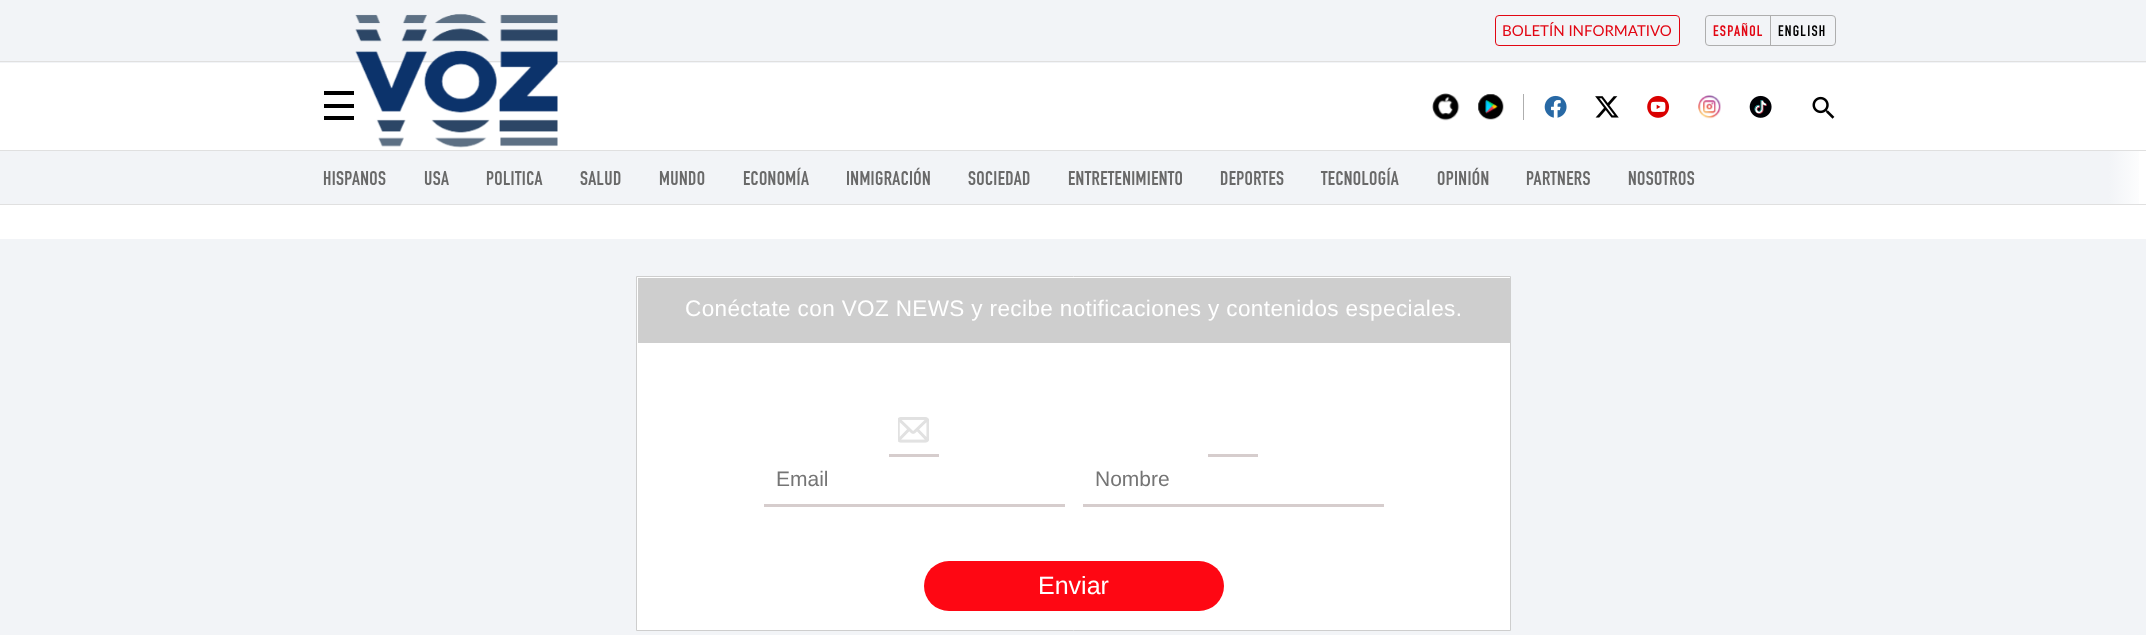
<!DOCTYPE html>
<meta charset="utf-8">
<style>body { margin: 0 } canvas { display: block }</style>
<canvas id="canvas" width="2146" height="635"></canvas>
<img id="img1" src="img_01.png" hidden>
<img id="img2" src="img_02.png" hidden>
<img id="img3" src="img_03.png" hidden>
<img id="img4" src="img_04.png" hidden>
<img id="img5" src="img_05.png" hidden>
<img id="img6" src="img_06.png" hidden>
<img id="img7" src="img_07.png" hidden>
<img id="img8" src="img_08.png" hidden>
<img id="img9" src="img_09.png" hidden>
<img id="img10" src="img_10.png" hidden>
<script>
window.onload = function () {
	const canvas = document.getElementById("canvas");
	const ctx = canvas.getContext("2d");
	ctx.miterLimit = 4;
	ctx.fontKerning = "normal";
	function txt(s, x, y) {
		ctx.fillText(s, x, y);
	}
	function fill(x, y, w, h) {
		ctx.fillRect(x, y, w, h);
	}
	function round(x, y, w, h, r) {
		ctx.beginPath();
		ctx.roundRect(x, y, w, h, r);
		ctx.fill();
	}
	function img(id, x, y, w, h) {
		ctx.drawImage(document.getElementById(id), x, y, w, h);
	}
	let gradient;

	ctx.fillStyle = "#FFFFFF";
	fill(0, 0, 2146, 635);
	ctx.fillStyle = "#000000";
	fill(324, 104, 30, 4);
	fill(324, 91, 30, 4);
	fill(324, 116, 30, 4);
	ctx.fillStyle = "#F2F4F7";
	fill(0, 0, 2146, 63);
	ctx.fillStyle = "#E0E0E0";
	fill(0, 61, 2146, 1);
	img("img1", 355, 13, 203, 135);
	img("img2", 1432, 93, 28, 28);
	img("img3", 1478, 94, 26, 26);
	ctx.fillStyle = "#AEAEAE";
	fill(1523, 94, 1, 26);
	img("img4", 1544, 95, 23, 23);
	img("img5", 1595, 96, 24, 22);
	img("img6", 1647, 95, 23, 23);
	img("img7", 1698, 95, 23, 24);
	img("img8", 1749, 95, 23, 23);
	ctx.beginPath();
	ctx.roundRect(1495.5, 15.5, 184, 30, 3.5);
	ctx.strokeStyle = "#E20613";
	ctx.stroke();
	ctx.beginPath();
	ctx.roundRect(1705.5, 15.5, 130, 30, 3.5);
	ctx.strokeStyle = "#AEAEAE";
	ctx.stroke();
	fill(1770, 16, 1, 29);
	img("img9", 1812, 96, 23, 23);
	ctx.fillStyle = "#F2F4F7";
	fill(0, 151, 2109, 53);
	ctx.fillStyle = "#E0E0E0";
	fill(0, 150, 2146, 1);
	fill(0, 204, 2146, 1);
	gradient = ctx.createLinearGradient(2109, 178, 2146, 178);
	gradient.addColorStop(0, "#F2F4F7");
	gradient.addColorStop(1, "#FFFFFF");
	ctx.fillStyle = gradient;
	fill(2109, 151, 30, 53);
	ctx.fillStyle = "#F2F4F7";
	fill(0, 239, 2146, 396);
	ctx.fillStyle = "#FFFFFF";
	ctx.beginPath();
	ctx.rect(636.5, 276.5, 874, 354);
	ctx.fill();
	ctx.strokeStyle = "#CECECE";
	ctx.stroke();
	ctx.fillStyle = "#CECECE";
	fill(638, 278, 872, 65);
	img("img10", 898, 417, 31, 26);
	ctx.fillStyle = "#D6CDCD";
	fill(889, 454, 50, 3);
	fill(764, 504, 301, 3);
	fill(1208, 454, 50, 3);
	fill(1083, 504, 301, 3);
	ctx.fillStyle = "#FE0713";
	round(924, 561, 300, 50, 25);
	ctx.font = "15px Lato";
	ctx.fillStyle = "#E20613";
	txt("BOLETÍN INFORMATIVO", 1502, 36);
	ctx.letterSpacing = "1.25px";
	ctx.font = "bold 15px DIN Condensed";
	txt("ESPAÑOL", 1713, 36);
	ctx.fillStyle = "#000000";
	txt("ENGLISH", 1778, 36);
	ctx.letterSpacing = "0.38px";
	ctx.font = "bold 19.5px DIN Condensed";
	ctx.fillStyle = "#696969";
	txt("HISPANOS", 323, 185);
	txt("USA", 424, 185);
	txt("POLITICA", 486, 185);
	txt("SALUD", 580, 185);
	txt("MUNDO", 659, 185);
	txt("ECONOMÍA", 743, 185);
	txt("INMIGRACIÓN", 846, 185);
	txt("SOCIEDAD", 968, 185);
	txt("ENTRETENIMIENTO", 1068, 185);
	txt("DEPORTES", 1220, 185);
	txt("TECNOLOGÍA", 1321, 185);
	txt("OPINIÓN", 1437, 185);
	txt("PARTNERS", 1526, 185);
	txt("NOSOTROS", 1628, 185);
	ctx.font = "22.5px Liberation Sans";
	ctx.fillStyle = "#FFFFFF";
	txt("Conéctate con VOZ NEWS y recibe notificaciones y contenidos especiales.", 685, 316);
	ctx.letterSpacing = "0px";
	ctx.font = "21px Liberation Sans";
	ctx.fillStyle = "#757575";
	txt("Email", 776, 486);
	txt("Nombre", 1095, 486);
	ctx.font = "25px Liberation Sans";
	ctx.fillStyle = "#FFFFFF";
	txt("Enviar", 1038, 594);
};
</script>
